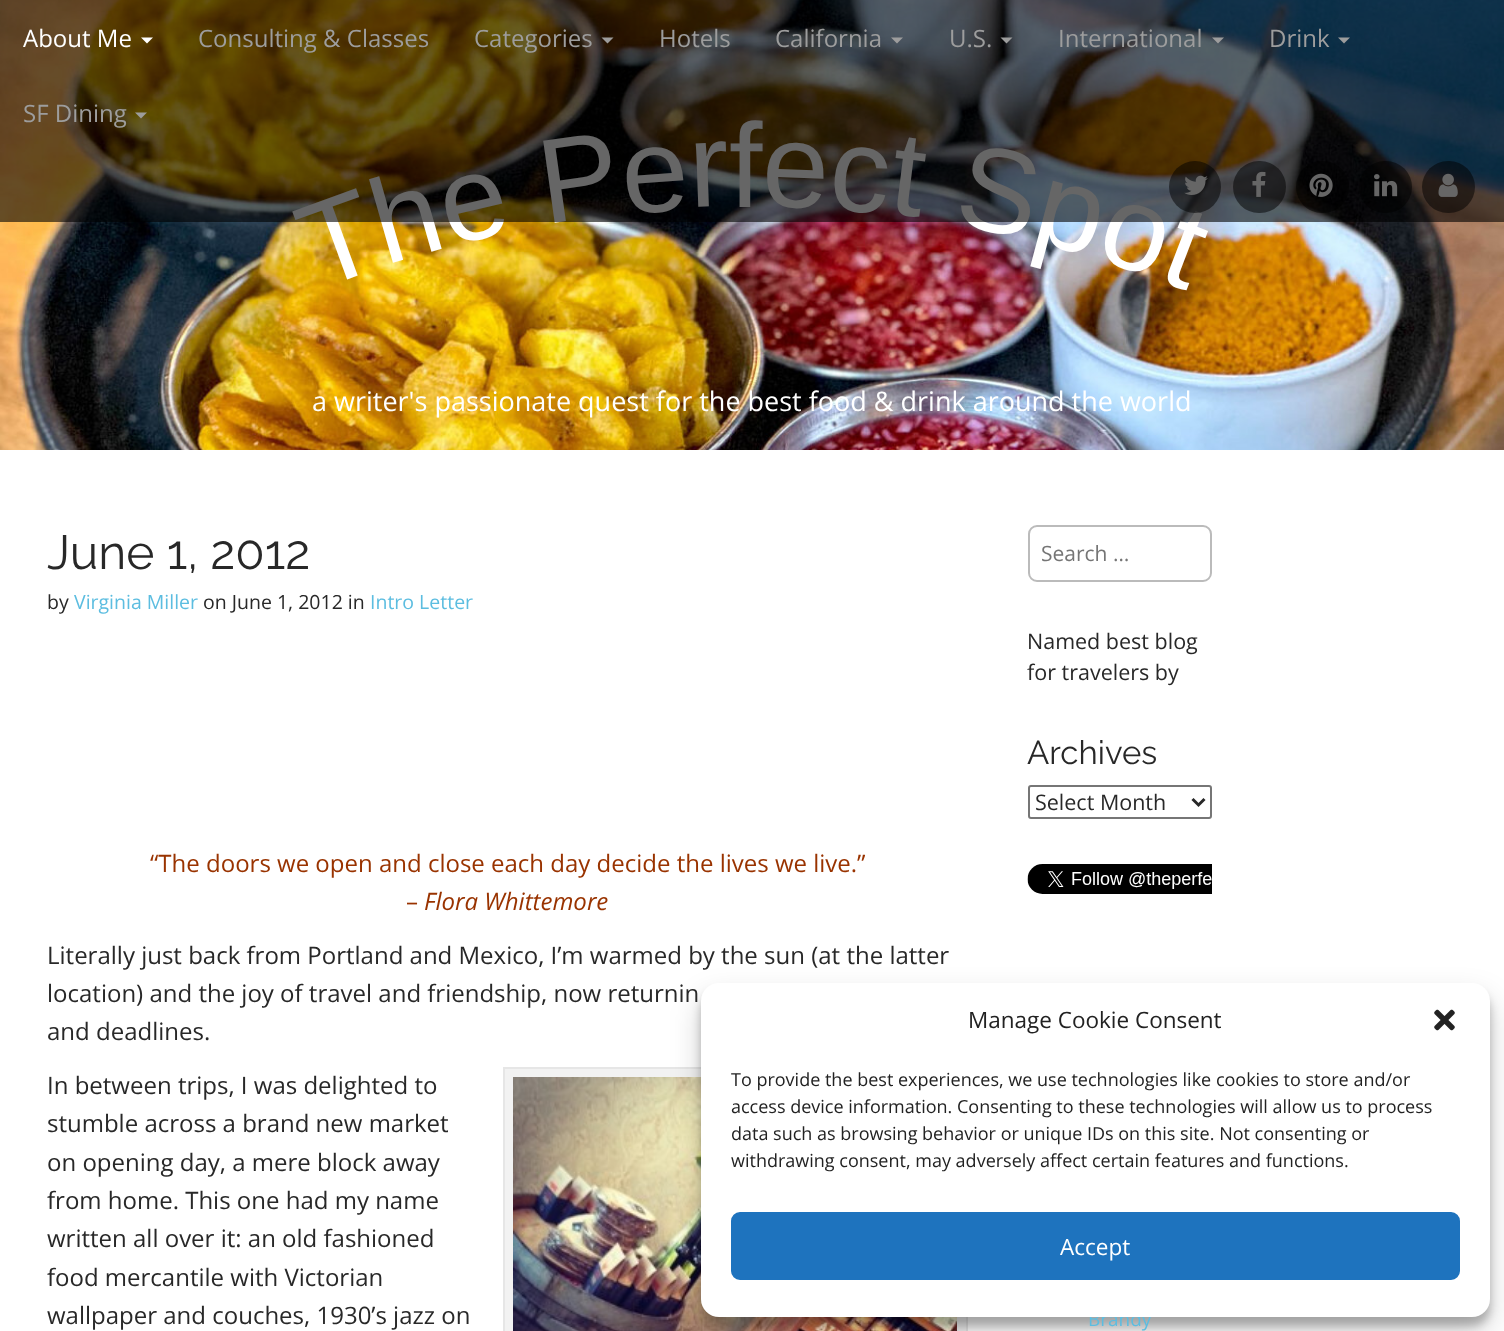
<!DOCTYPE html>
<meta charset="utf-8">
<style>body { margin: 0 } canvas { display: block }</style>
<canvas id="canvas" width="1504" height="1331"></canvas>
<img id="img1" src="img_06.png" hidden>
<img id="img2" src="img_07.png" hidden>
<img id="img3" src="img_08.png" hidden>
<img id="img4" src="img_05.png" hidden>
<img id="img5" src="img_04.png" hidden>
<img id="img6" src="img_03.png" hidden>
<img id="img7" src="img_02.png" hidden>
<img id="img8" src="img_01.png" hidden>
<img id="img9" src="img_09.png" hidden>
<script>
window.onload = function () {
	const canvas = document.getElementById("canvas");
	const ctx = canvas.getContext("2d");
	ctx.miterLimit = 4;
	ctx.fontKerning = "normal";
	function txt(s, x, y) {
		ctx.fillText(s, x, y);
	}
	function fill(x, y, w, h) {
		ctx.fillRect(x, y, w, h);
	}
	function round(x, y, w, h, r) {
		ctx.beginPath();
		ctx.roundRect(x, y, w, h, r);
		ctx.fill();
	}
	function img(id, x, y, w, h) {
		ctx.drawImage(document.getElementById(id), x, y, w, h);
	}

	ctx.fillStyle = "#FFFFFF";
	fill(0, 0, 1504, 1331);
	img("img1", 0, 0, 1504, 450);
	ctx.fillStyle = "#F2F2F2";
	ctx.beginPath();
	ctx.rect(504, 1068, 463, 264);
	ctx.fill();
	ctx.strokeStyle = "#E6E6E6";
	ctx.lineWidth = 2;
	ctx.stroke();
	img("img2", 513, 1077, 444, 254);
	ctx.beginPath();
	ctx.roundRect(1029, 526, 182, 55, 8);
	ctx.strokeStyle = "#BBBBBB";
	ctx.stroke();
	ctx.beginPath();
	ctx.roundRect(1029, 786, 182, 32, 2);
	ctx.strokeStyle = "#767676";
	ctx.stroke();
	ctx.beginPath();
	ctx.moveTo(1192.5, 799);
	ctx.lineTo(1198.5, 805);
	ctx.lineTo(1204.5, 799);
	ctx.strokeStyle = "#282828";
	ctx.lineWidth = 3;
	ctx.stroke();
	img("img3", 1027, 864, 185, 30);
	ctx.fillStyle = "rgba(0, 0, 0, 0.23)";
	ctx.filter = "blur(4.5px)";
	ctx.beginPath();
	ctx.roundRect(701, 992, 789, 334, 18);
	ctx.fill();
	ctx.filter = "none";
	ctx.fillStyle = "rgba(0, 0, 0, 0.19)";
	ctx.filter = "blur(15px)";
	ctx.beginPath();
	ctx.roundRect(701, 998, 789, 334, 18);
	ctx.fill();
	ctx.filter = "none";
	ctx.font = "120px Liberation Sans";
	ctx.fillStyle = "#FFFFFF";
	ctx.save();
	ctx.translate(318, 290);
	ctx.rotate(-20 * Math.PI / 180);
	ctx.fillText("T", 0, 0);
	ctx.restore();
	ctx.save();
	ctx.translate(385, 265);
	ctx.rotate(-16 * Math.PI / 180);
	ctx.fillText("h", 0, 0);
	ctx.restore();
	ctx.save();
	ctx.translate(449, 246);
	ctx.rotate(-13 * Math.PI / 180);
	ctx.fillText("e", 0, 0);
	ctx.restore();
	ctx.save();
	ctx.translate(545, 224);
	ctx.rotate(-8 * Math.PI / 180);
	ctx.fillText("P", 0, 0);
	ctx.restore();
	ctx.save();
	ctx.translate(624, 214);
	ctx.rotate(-4 * Math.PI / 180);
	ctx.fillText("e", 0, 0);
	ctx.restore();
	ctx.save();
	ctx.translate(690, 207);
	ctx.rotate(-2 * Math.PI / 180);
	ctx.fillText("r", 0, 0);
	ctx.restore();
	txt("f", 729, 207);
	ctx.save();
	ctx.translate(761, 206);
	ctx.rotate(2 * Math.PI / 180);
	ctx.fillText("e", 0, 0);
	ctx.restore();
	ctx.save();
	ctx.translate(827, 209);
	ctx.rotate(5 * Math.PI / 180);
	ctx.fillText("c", 0, 0);
	ctx.restore();
	ctx.save();
	ctx.translate(887, 213);
	ctx.rotate(7 * Math.PI / 180);
	ctx.fillText("t", 0, 0);
	ctx.restore();
	ctx.save();
	ctx.translate(952, 224);
	ctx.rotate(11 * Math.PI / 180);
	ctx.fillText("S", 0, 0);
	ctx.restore();
	ctx.save();
	ctx.translate(1029, 240);
	ctx.rotate(15 * Math.PI / 180);
	ctx.fillText("p", 0, 0);
	ctx.restore();
	ctx.save();
	ctx.translate(1093, 258);
	ctx.rotate(18 * Math.PI / 180);
	ctx.fillText("o", 0, 0);
	ctx.restore();
	ctx.save();
	ctx.translate(1156, 279);
	ctx.rotate(21 * Math.PI / 180);
	ctx.fillText("t", 0, 0);
	ctx.restore();
	ctx.fillStyle = "rgba(0, 0, 0, 0.6)";
	fill(0, 0, 1504, 222);
	ctx.fillStyle = "rgba(0, 0, 0, 0.5)";
	round(1422, 161, 53, 52, 26);
	img("img4", 1438, 173, 20, 24);
	round(1359, 161, 53, 52, 26);
	img("img5", 1374, 174, 24, 23);
	round(1296, 161, 53, 52, 26);
	img("img6", 1309, 173, 24, 24);
	round(1233, 161, 53, 52, 26);
	img("img7", 1252, 171, 14, 26);
	ctx.beginPath();
	ctx.arc(1195, 187, 26, 0, Math.PI * 2);
	ctx.fill();
	img("img8", 1184, 175, 24, 20);
	ctx.fillStyle = "#9D9D9D";
	ctx.beginPath();
	ctx.moveTo(135, 112.5);
	ctx.lineTo(147, 112.5);
	ctx.lineTo(141, 118.5);
	ctx.closePath();
	ctx.fill();
	ctx.font = "24px Open Sans";
	txt("SF Dining", 23, 122);
	ctx.beginPath();
	ctx.moveTo(1338, 37.5);
	ctx.lineTo(1350, 37.5);
	ctx.lineTo(1344, 43.5);
	ctx.closePath();
	ctx.fill();
	txt("Drink", 1269, 47);
	ctx.beginPath();
	ctx.moveTo(1212, 37.5);
	ctx.lineTo(1224, 37.5);
	ctx.lineTo(1218, 43.5);
	ctx.closePath();
	ctx.fill();
	txt("International", 1058, 47);
	ctx.beginPath();
	ctx.moveTo(1000.5, 37.5);
	ctx.lineTo(1012.5, 37.5);
	ctx.lineTo(1006.5, 43.5);
	ctx.closePath();
	ctx.fill();
	txt("U.S.", 949, 47);
	ctx.beginPath();
	ctx.moveTo(891, 37.5);
	ctx.lineTo(903, 37.5);
	ctx.lineTo(897, 43.5);
	ctx.closePath();
	ctx.fill();
	txt("California", 775, 47);
	txt("Hotels", 659, 47);
	ctx.beginPath();
	ctx.moveTo(601.5, 37.5);
	ctx.lineTo(613.5, 37.5);
	ctx.lineTo(607.5, 43.5);
	ctx.closePath();
	ctx.fill();
	txt("Categories", 474, 47);
	txt("Consulting & Classes", 198, 47);
	ctx.fillStyle = "#FFFFFF";
	ctx.beginPath();
	ctx.moveTo(141, 37.5);
	ctx.lineTo(153, 37.5);
	ctx.lineTo(147, 43.5);
	ctx.closePath();
	ctx.fill();
	txt("About Me", 23, 47);
	ctx.font = "27px Open Sans";
	txt("a writer's passionate quest for the best food & drink around the world", 312, 411);
	ctx.font = "100 48px Raleway";
	ctx.fillStyle = "#282828";
	txt("June 1, 2012", 47, 569);
	ctx.font = "19.5px Open Sans";
	txt("by", 47, 609);
	ctx.fillStyle = "#5CBDE0";
	txt("Virginia Miller", 74, 609);
	ctx.fillStyle = "#282828";
	txt("on June 1, 2012 in", 203, 609);
	ctx.fillStyle = "#5CBDE0";
	txt("Intro Letter", 370, 609);
	ctx.font = "24px Open Sans";
	ctx.fillStyle = "#993300";
	txt("“The doors we open and close each day decide the lives we live.”", 150, 872);
	txt("–", 406, 910);
	ctx.font = "italic 24px Open Sans";
	txt("Flora Whittemore", 424, 910);
	ctx.font = "24px Open Sans";
	ctx.fillStyle = "#282828";
	txt("Literally just back from Portland and Mexico, I’m warmed by the sun (at the latter", 47, 964);
	txt("location) and the joy of travel and friendship, now returnin", 47, 1002);
	txt("and deadlines.", 47, 1040);
	txt("In between trips, I was delighted to", 47, 1094);
	txt("stumble across a brand new market", 47, 1132);
	txt("on opening day, a mere block away", 47, 1171);
	txt("from home. This one had my name", 47, 1209);
	txt("written all over it: an old fashioned", 47, 1247);
	txt("food mercantile with Victorian", 47, 1286);
	txt("wallpaper and couches, 1930’s jazz on", 47, 1324);
	ctx.font = "21px Open Sans";
	ctx.fillStyle = "#757575";
	txt("Search …", 1041, 561);
	ctx.font = "21.5px Open Sans";
	ctx.fillStyle = "#282828";
	txt("Named best blog", 1027, 649);
	txt("for travelers by", 1027, 680);
	ctx.font = "100 33px Raleway";
	txt("Archives", 1027, 764);
	ctx.font = "21.5px Open Sans";
	txt("Select Month", 1035, 810);
	ctx.font = "19px Open Sans";
	ctx.fillStyle = "#5CBDE0";
	txt("Brandy", 1088, 1326);
	ctx.fillStyle = "#FFFFFF";
	round(701, 983, 789, 334, 18);
	ctx.font = "22.5px Open Sans";
	ctx.fillStyle = "#222222";
	txt("Manage Cookie Consent", 968, 1028);
	img("img9", 1434, 1009, 21, 22);
	ctx.font = "18px Open Sans";
	txt("To provide the best experiences, we use technologies like cookies to store and/or", 731, 1086);
	txt("access device information. Consenting to these technologies will allow us to process", 731, 1113);
	txt("data such as browsing behavior or unique IDs on this site. Not consenting or", 731, 1140);
	txt("withdrawing consent, may adversely affect certain features and functions.", 731, 1167);
	ctx.fillStyle = "#1E73BE";
	ctx.beginPath();
	ctx.roundRect(732, 1213, 727, 66, 8);
	ctx.fill();
	ctx.strokeStyle = "#1E73BE";
	ctx.lineWidth = 2;
	ctx.stroke();
	ctx.font = "22.5px Open Sans";
	ctx.fillStyle = "#FFFFFF";
	txt("Accept", 1060, 1255);
};
</script>
